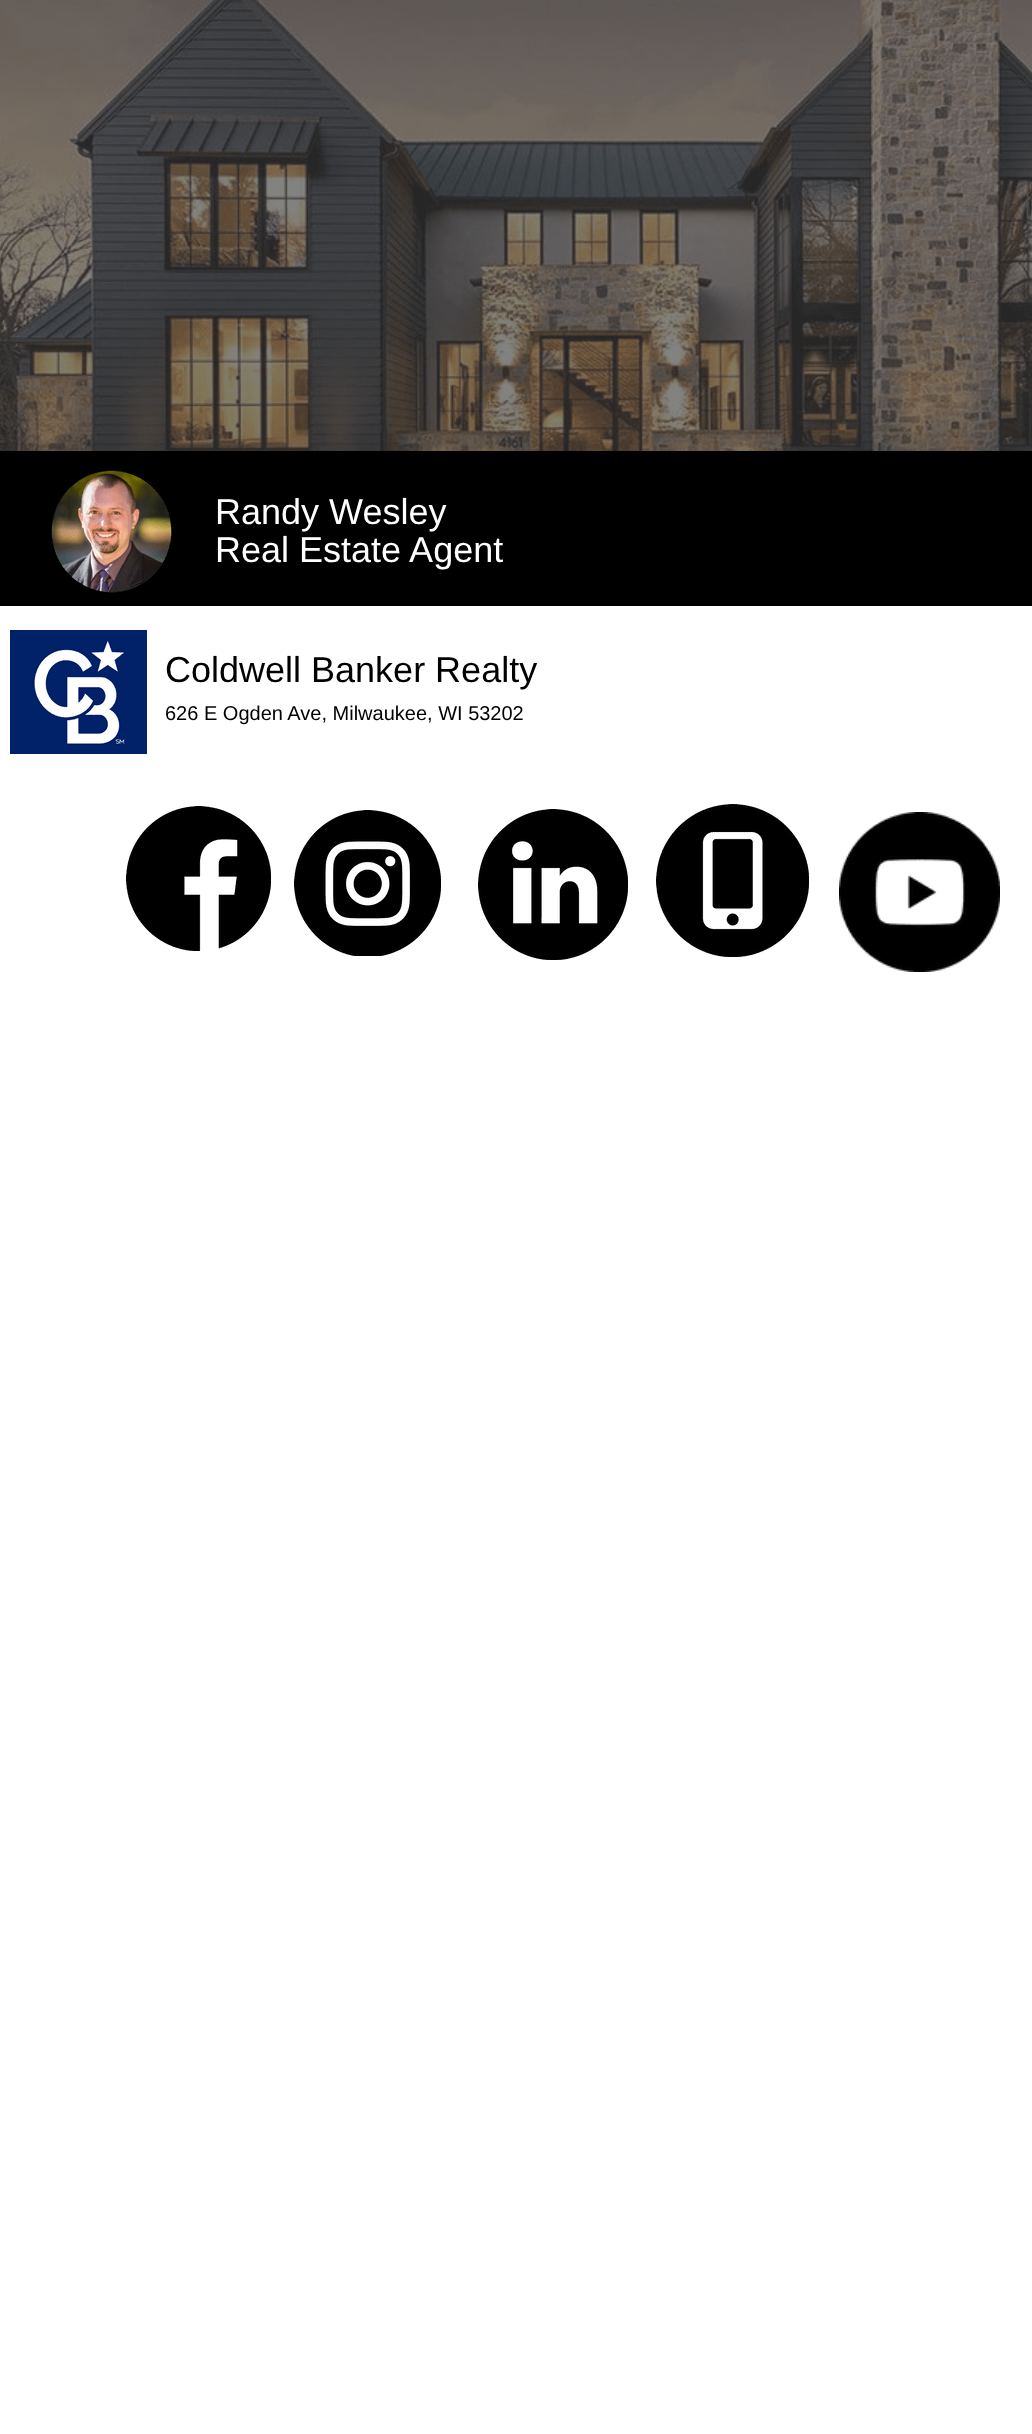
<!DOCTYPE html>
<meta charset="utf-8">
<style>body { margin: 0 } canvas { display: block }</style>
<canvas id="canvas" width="1032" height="2434"></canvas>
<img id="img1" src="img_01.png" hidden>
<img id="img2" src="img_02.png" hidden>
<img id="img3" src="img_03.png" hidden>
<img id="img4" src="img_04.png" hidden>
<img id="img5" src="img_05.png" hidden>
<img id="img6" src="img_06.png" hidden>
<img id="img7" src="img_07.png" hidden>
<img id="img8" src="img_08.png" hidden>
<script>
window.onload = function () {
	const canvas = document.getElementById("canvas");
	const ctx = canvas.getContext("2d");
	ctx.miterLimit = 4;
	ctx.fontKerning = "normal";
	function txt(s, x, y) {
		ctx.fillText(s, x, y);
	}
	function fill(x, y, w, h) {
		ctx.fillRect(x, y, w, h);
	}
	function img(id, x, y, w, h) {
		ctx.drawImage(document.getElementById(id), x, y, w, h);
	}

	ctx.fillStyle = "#FFFFFF";
	fill(0, 0, 1032, 2434);
	img("img1", 0, 0, 1032, 451);
	ctx.fillStyle = "#000000";
	fill(0, 451, 1032, 155);
	img("img2", 51, 470, 121, 123);
	img("img3", 10, 630, 137, 124);
	img("img4", 126, 806, 145, 145);
	img("img5", 294, 810, 147, 146);
	img("img6", 478, 809, 150, 151);
	img("img7", 656, 804, 153, 153);
	img("img8", 839, 812, 161, 160);
	ctx.font = "36px Liberation Sans";
	ctx.fillStyle = "#FFFFFF";
	txt("Randy Wesley", 215, 524);
	txt("Real Estate Agent", 215, 562);
	ctx.fillStyle = "#000000";
	txt("Coldwell Banker Realty", 165, 682);
	ctx.font = "20px Liberation Sans";
	txt("626 E Ogden Ave, Milwaukee, WI 53202", 165, 720);
};
</script>
